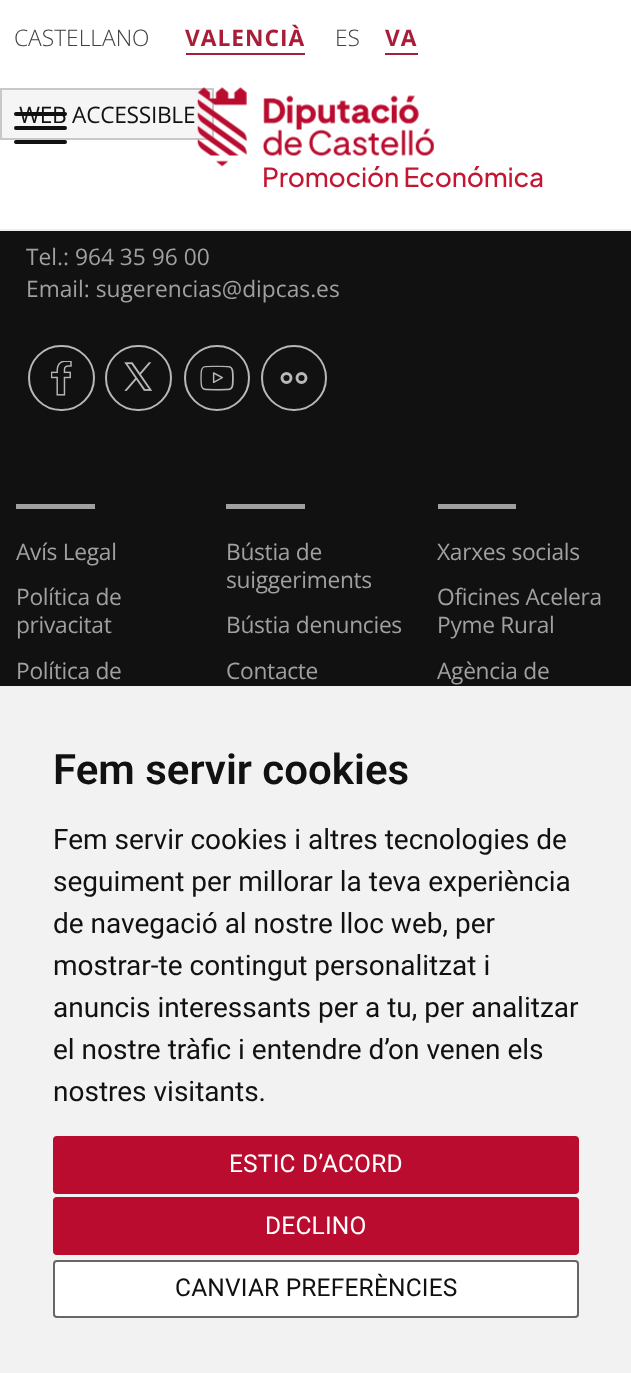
<!DOCTYPE html>
<meta charset="utf-8">
<style>body { margin: 0 } canvas { display: block }</style>
<canvas id="canvas" width="631" height="1373"></canvas>
<img id="img1" src="img_01.png" hidden>
<img id="img2" src="img_02.png" hidden>
<img id="img3" src="img_03.png" hidden>
<img id="img4" src="img_04.png" hidden>
<script>
window.onload = function () {
	const canvas = document.getElementById("canvas");
	const ctx = canvas.getContext("2d");
	ctx.miterLimit = 4;
	ctx.fontKerning = "normal";
	function txt(s, x, y) {
		ctx.fillText(s, x, y);
	}
	function fill(x, y, w, h) {
		ctx.fillRect(x, y, w, h);
	}
	function round(x, y, w, h, r) {
		ctx.beginPath();
		ctx.roundRect(x, y, w, h, r);
		ctx.fill();
	}
	function img(id, x, y, w, h) {
		ctx.drawImage(document.getElementById(id), x, y, w, h);
	}

	ctx.fillStyle = "#111111";
	fill(0, 0, 631, 1373);
	ctx.fillStyle = "#FFFFFF";
	fill(0, 0, 631, 229);
	ctx.fillStyle = "#EEEEEE";
	fill(0, 229, 631, 2);
	ctx.fillStyle = "#A81D37";
	fill(186, 53, 119, 2);
	fill(385, 53, 33, 2);
	ctx.fillStyle = "#F5F5F5";
	ctx.beginPath();
	ctx.rect(1, 89, 212, 50);
	ctx.fill();
	ctx.strokeStyle = "#C8C8C8";
	ctx.lineWidth = 2;
	ctx.stroke();
	img("img1", 197, 87, 237, 80);
	ctx.fillStyle = "#111111";
	round(14, 126, 53, 4, 2);
	round(14, 112, 53, 4, 2);
	round(14, 140, 53, 4, 2);
	img("img2", 51, 361, 21, 35);
	ctx.beginPath();
	ctx.roundRect(29, 346, 65, 64, 32);
	ctx.strokeStyle = "#B8B8B8";
	ctx.stroke();
	img("img3", 124, 362, 28, 29);
	ctx.beginPath();
	ctx.roundRect(106, 346, 65, 64, 32);
	ctx.stroke();
	img("img4", 200, 365, 34, 26);
	ctx.beginPath();
	ctx.arc(217, 378, 32, 0, Math.PI * 2);
	ctx.stroke();
	ctx.beginPath();
	ctx.arc(286.5, 378, 4.5, 0, Math.PI * 2);
	ctx.lineWidth = 2.9;
	ctx.stroke();
	ctx.beginPath();
	ctx.arc(301.5, 378, 4.5, 0, Math.PI * 2);
	ctx.stroke();
	ctx.beginPath();
	ctx.arc(294, 378, 32, 0, Math.PI * 2);
	ctx.lineWidth = 2;
	ctx.stroke();
	ctx.fillStyle = "#A0A0A0";
	fill(16, 504, 79, 5);
	fill(226, 504, 79, 5);
	fill(438, 504, 78, 5);
	ctx.fillStyle = "#F2F2F2";
	fill(0, 686, 631, 687);
	ctx.fillStyle = "#BA0C2F";
	ctx.beginPath();
	ctx.roundRect(54, 1137, 524, 56, 3);
	ctx.fill();
	ctx.strokeStyle = "#BA0C2F";
	ctx.stroke();
	ctx.beginPath();
	ctx.roundRect(54, 1198, 524, 56, 3);
	ctx.fill();
	ctx.stroke();
	ctx.fillStyle = "#FFFFFF";
	ctx.beginPath();
	ctx.roundRect(54, 1261, 524, 56, 3);
	ctx.fill();
	ctx.strokeStyle = "#666666";
	ctx.stroke();
	ctx.font = "300 22.75px Open Sans";
	ctx.fillStyle = "#404040";
	txt("CASTELLANO", 14, 46);
	ctx.letterSpacing = "1px";
	ctx.font = "bold 22.75px Open Sans";
	ctx.fillStyle = "#A81D37";
	txt("VALENCIÀ", 185, 46);
	ctx.letterSpacing = "0px";
	ctx.font = "300 22.75px Open Sans";
	ctx.fillStyle = "#404040";
	txt("ES", 335, 46);
	ctx.letterSpacing = "1px";
	ctx.font = "bold 22.75px Open Sans";
	ctx.fillStyle = "#A81D37";
	txt("VA", 385, 46);
	ctx.letterSpacing = "-0.3px";
	ctx.font = "22.75px Open Sans";
	ctx.fillStyle = "#111111";
	txt("WEB ACCESSIBLE", 19, 123);
	ctx.letterSpacing = "-0.2px";
	ctx.font = "500 26.25px Plus Jakarta Sans";
	ctx.fillStyle = "#C21632";
	txt("Promoción Económica", 262, 187);
	ctx.letterSpacing = "0px";
	ctx.font = "22.75px Open Sans";
	ctx.fillStyle = "#A0A0A0";
	txt("Tel.: 964 35 96 00", 26, 265);
	txt("Email: sugerencias@dipcas.es", 26, 297);
	ctx.letterSpacing = "-0.3px";
	txt("Avís Legal", 16, 560);
	txt("Política de", 16, 605);
	txt("privacitat", 16, 633);
	txt("Política de", 16, 679);
	txt("Bústia de", 226, 560);
	txt("suiggeriments", 226, 588);
	txt("Bústia denuncies", 226, 633);
	txt("Contacte", 226, 679);
	txt("Xarxes socials", 437, 560);
	txt("Oficines Acelera", 437, 605);
	txt("Pyme Rural", 437, 633);
	txt("Agència de", 437, 679);
	ctx.letterSpacing = "0px";
	ctx.font = "600 42px Roboto";
	ctx.fillStyle = "#111111";
	txt("Fem servir cookies", 53, 784);
	ctx.font = "28px Roboto";
	txt("Fem servir cookies i altres tecnologies de", 53, 849);
	txt("seguiment per millorar la teva experiència", 53, 891);
	txt("de navegació al nostre lloc web, per", 53, 933);
	txt("mostrar-te contingut personalitzat i", 53, 975);
	txt("anuncis interessants per a tu, per analitzar", 53, 1017);
	txt("el nostre tràfic i entendre d’on venen els", 53, 1059);
	txt("nostres visitants.", 53, 1101);
	ctx.letterSpacing = "0.2px";
	ctx.font = "24.5px Roboto";
	ctx.fillStyle = "#FFFFFF";
	txt("ESTIC D’ACORD", 229, 1172);
	txt("DECLINO", 265, 1234);
	ctx.fillStyle = "#111111";
	txt("CANVIAR PREFERÈNCIES", 175, 1296);
};
</script>
